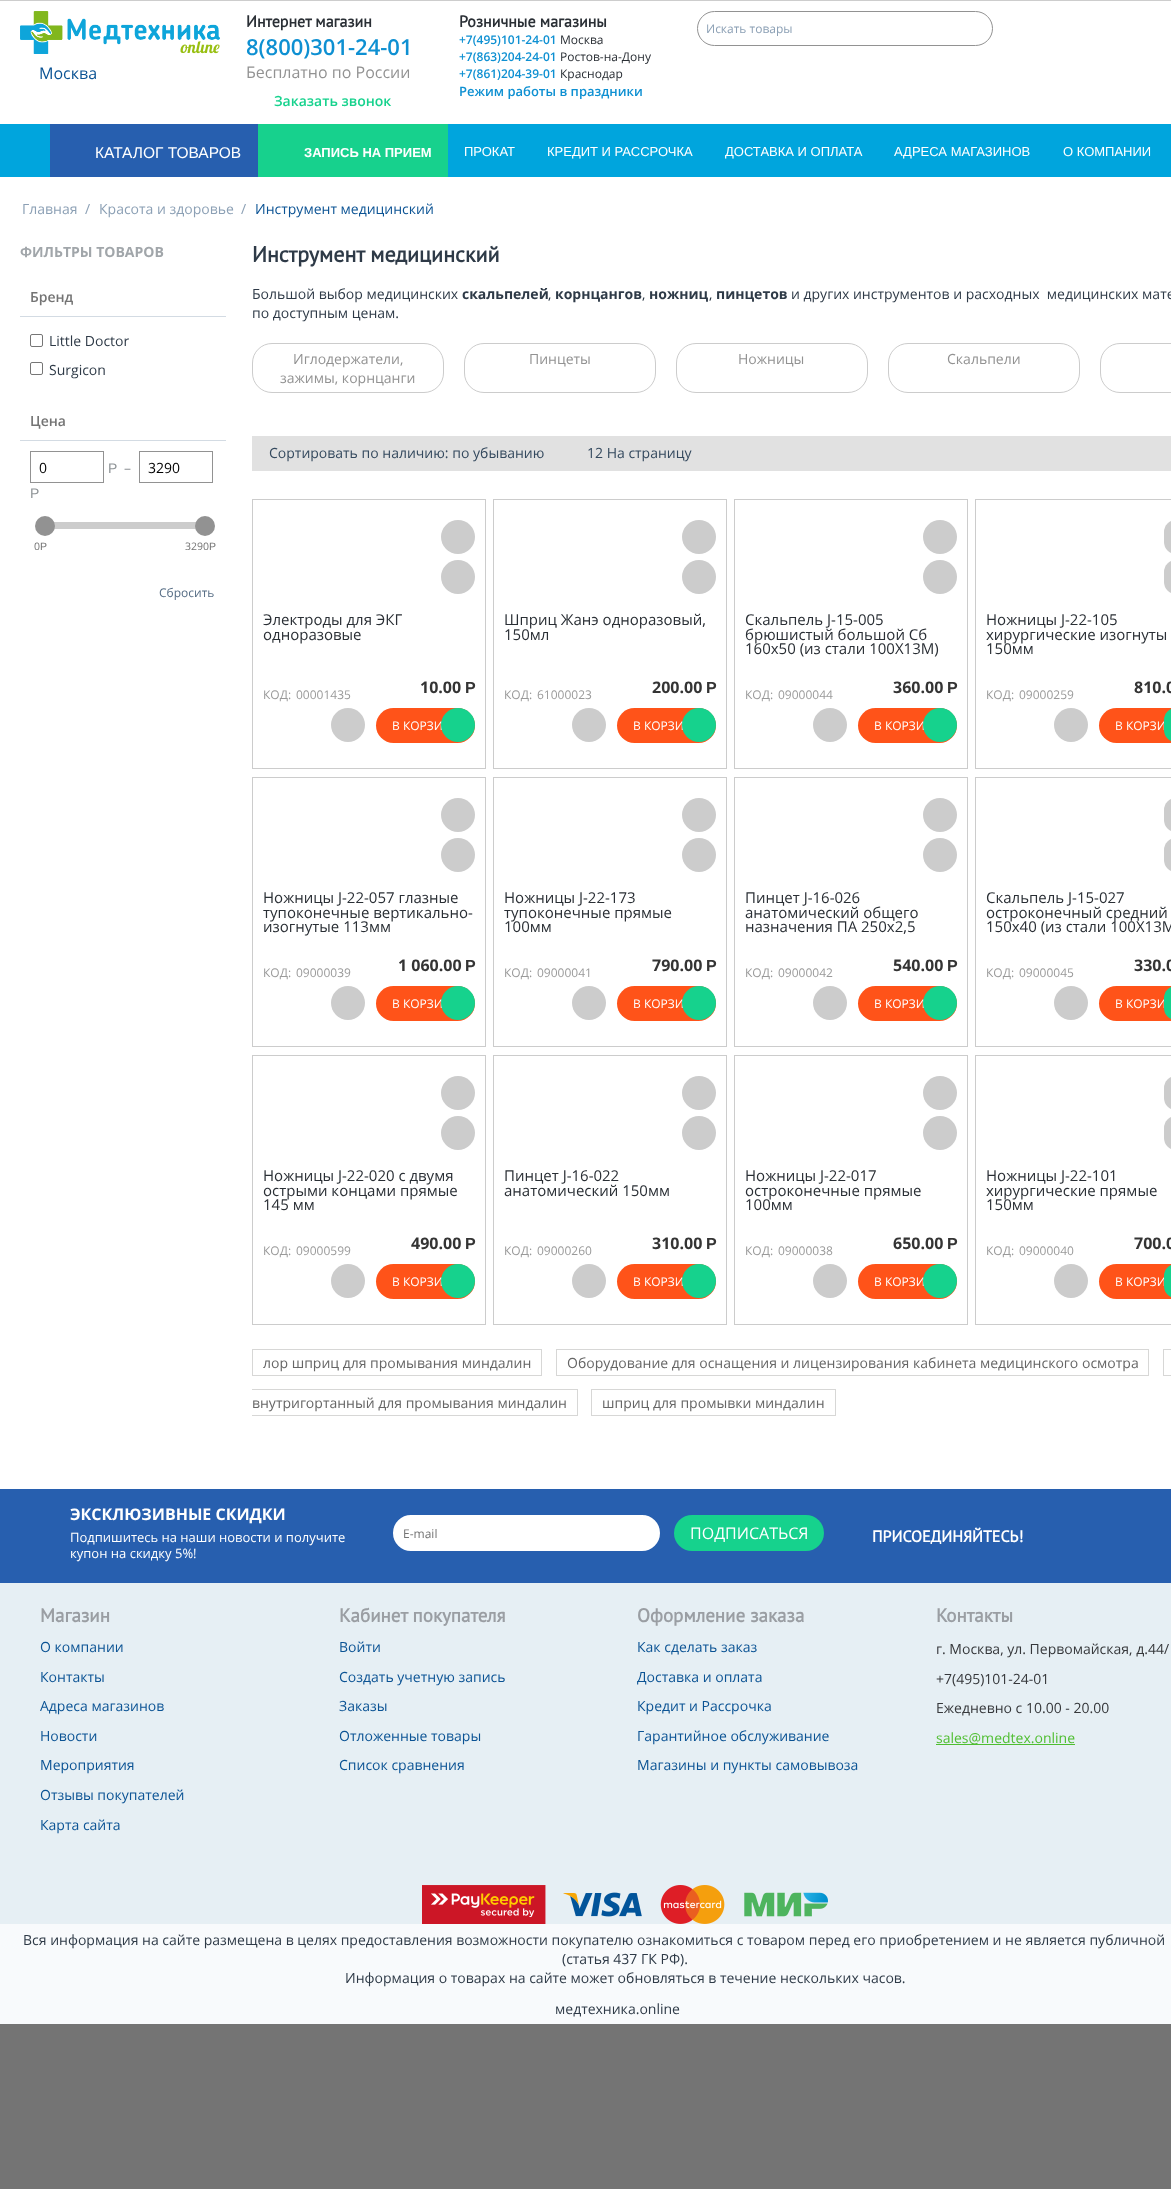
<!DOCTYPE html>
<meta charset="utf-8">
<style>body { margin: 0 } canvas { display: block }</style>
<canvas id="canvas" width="1171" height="2189"></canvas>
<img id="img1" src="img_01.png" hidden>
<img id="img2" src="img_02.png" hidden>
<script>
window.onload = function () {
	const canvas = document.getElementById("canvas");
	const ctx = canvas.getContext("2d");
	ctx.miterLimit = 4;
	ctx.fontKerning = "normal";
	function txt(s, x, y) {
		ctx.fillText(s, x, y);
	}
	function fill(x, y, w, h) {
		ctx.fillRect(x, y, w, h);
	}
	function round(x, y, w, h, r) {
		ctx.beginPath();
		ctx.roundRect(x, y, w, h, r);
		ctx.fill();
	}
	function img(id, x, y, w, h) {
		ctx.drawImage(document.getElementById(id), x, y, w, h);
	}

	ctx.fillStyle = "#747474";
	fill(0, 0, 1171, 2189);
	ctx.fillStyle = "#CDCDCD";
	fill(0, 0, 1171, 1);
	ctx.fillStyle = "#FFFFFF";
	fill(0, 1, 1171, 123);
	ctx.beginPath();
	ctx.roundRect(697.5, 11.5, 295, 34, 17);
	ctx.strokeStyle = "#929292";
	ctx.stroke();
	img("img1", 20, 11, 200, 43);
	ctx.fillStyle = "#00A5DD";
	fill(0, 124, 1171, 53);
	ctx.fillStyle = "#275FAF";
	fill(50, 124, 208, 53);
	ctx.fillStyle = "#17D18D";
	fill(258, 124, 190, 53);
	ctx.fillStyle = "#FFFFFF";
	fill(0, 177, 1171, 1312);
	ctx.fillStyle = "#D3DBE3";
	fill(20, 316, 206, 1);
	ctx.beginPath();
	ctx.roundRect(30.5, 334.5, 12, 12, 1.5);
	ctx.strokeStyle = "#767676";
	ctx.stroke();
	ctx.beginPath();
	ctx.roundRect(30.5, 362.5, 12, 12, 1.5);
	ctx.stroke();
	fill(20, 440, 206, 1);
	ctx.strokeStyle = "#929292";
	ctx.strokeRect(139.5, 451.5, 73, 31);
	ctx.strokeRect(30.5, 451.5, 73, 31);
	ctx.fillStyle = "#CCCCCC";
	fill(54, 522, 149, 7);
	ctx.fillStyle = "#929292";
	ctx.beginPath();
	ctx.arc(45, 526, 10, 0, Math.PI * 2);
	ctx.fill();
	ctx.beginPath();
	ctx.arc(205, 526, 10, 0, Math.PI * 2);
	ctx.fill();
	ctx.beginPath();
	ctx.roundRect(252.5, 343.5, 191, 49, 19.5);
	ctx.strokeStyle = "#CCCCCC";
	ctx.stroke();
	ctx.beginPath();
	ctx.roundRect(464.5, 343.5, 191, 49, 19.5);
	ctx.stroke();
	ctx.beginPath();
	ctx.roundRect(676.5, 343.5, 191, 49, 19.5);
	ctx.stroke();
	ctx.beginPath();
	ctx.roundRect(888.5, 343.5, 191, 49, 19.5);
	ctx.stroke();
	ctx.beginPath();
	ctx.roundRect(1100.5, 343.5, 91, 49, 19.5);
	ctx.stroke();
	ctx.fillStyle = "#E1E1E1";
	fill(252, 436, 919, 35);
	ctx.strokeRect(252.5, 499.5, 233, 269);
	ctx.fillStyle = "#CCCCCC";
	ctx.beginPath();
	ctx.arc(458, 537, 17, 0, Math.PI * 2);
	ctx.fill();
	ctx.beginPath();
	ctx.arc(458, 577, 17, 0, Math.PI * 2);
	ctx.fill();
	ctx.beginPath();
	ctx.arc(348, 725, 17, 0, Math.PI * 2);
	ctx.fill();
	ctx.fillStyle = "#FF5319";
	round(376, 708, 99, 35, 17.5);
	ctx.strokeRect(493.5, 499.5, 233, 269);
	ctx.fillStyle = "#CCCCCC";
	ctx.beginPath();
	ctx.arc(699, 537, 17, 0, Math.PI * 2);
	ctx.fill();
	ctx.beginPath();
	ctx.arc(699, 577, 17, 0, Math.PI * 2);
	ctx.fill();
	ctx.beginPath();
	ctx.arc(589, 725, 17, 0, Math.PI * 2);
	ctx.fill();
	ctx.fillStyle = "#FF5319";
	round(617, 708, 99, 35, 17.5);
	ctx.strokeRect(734.5, 499.5, 233, 269);
	ctx.fillStyle = "#CCCCCC";
	ctx.beginPath();
	ctx.arc(940, 537, 17, 0, Math.PI * 2);
	ctx.fill();
	ctx.beginPath();
	ctx.arc(940, 577, 17, 0, Math.PI * 2);
	ctx.fill();
	ctx.beginPath();
	ctx.arc(830, 725, 17, 0, Math.PI * 2);
	ctx.fill();
	ctx.fillStyle = "#FF5319";
	round(858, 708, 99, 35, 17.5);
	ctx.strokeRect(975.5, 499.5, 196, 269);
	ctx.fillStyle = "#CCCCCC";
	round(1164, 520, 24, 34, 17);
	round(1164, 560, 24, 34, 17);
	ctx.beginPath();
	ctx.arc(1071, 725, 17, 0, Math.PI * 2);
	ctx.fill();
	ctx.fillStyle = "#FF5319";
	round(1099, 708, 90, 35, 17.5);
	ctx.strokeRect(252.5, 777.5, 233, 269);
	ctx.fillStyle = "#CCCCCC";
	ctx.beginPath();
	ctx.arc(458, 815, 17, 0, Math.PI * 2);
	ctx.fill();
	ctx.beginPath();
	ctx.arc(458, 855, 17, 0, Math.PI * 2);
	ctx.fill();
	ctx.beginPath();
	ctx.arc(348, 1003, 17, 0, Math.PI * 2);
	ctx.fill();
	ctx.fillStyle = "#FF5319";
	round(376, 986, 99, 35, 17.5);
	ctx.strokeRect(493.5, 777.5, 233, 269);
	ctx.fillStyle = "#CCCCCC";
	ctx.beginPath();
	ctx.arc(699, 815, 17, 0, Math.PI * 2);
	ctx.fill();
	ctx.beginPath();
	ctx.arc(699, 855, 17, 0, Math.PI * 2);
	ctx.fill();
	ctx.beginPath();
	ctx.arc(589, 1003, 17, 0, Math.PI * 2);
	ctx.fill();
	ctx.fillStyle = "#FF5319";
	round(617, 986, 99, 35, 17.5);
	ctx.strokeRect(734.5, 777.5, 233, 269);
	ctx.fillStyle = "#CCCCCC";
	ctx.beginPath();
	ctx.arc(940, 815, 17, 0, Math.PI * 2);
	ctx.fill();
	ctx.beginPath();
	ctx.arc(940, 855, 17, 0, Math.PI * 2);
	ctx.fill();
	ctx.beginPath();
	ctx.arc(830, 1003, 17, 0, Math.PI * 2);
	ctx.fill();
	ctx.fillStyle = "#FF5319";
	round(858, 986, 99, 35, 17.5);
	ctx.strokeRect(975.5, 777.5, 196, 269);
	ctx.fillStyle = "#CCCCCC";
	round(1164, 798, 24, 34, 17);
	round(1164, 838, 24, 34, 17);
	ctx.beginPath();
	ctx.arc(1071, 1003, 17, 0, Math.PI * 2);
	ctx.fill();
	ctx.fillStyle = "#FF5319";
	round(1099, 986, 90, 35, 17.5);
	ctx.strokeRect(252.5, 1055.5, 233, 269);
	ctx.fillStyle = "#CCCCCC";
	ctx.beginPath();
	ctx.arc(458, 1093, 17, 0, Math.PI * 2);
	ctx.fill();
	ctx.beginPath();
	ctx.arc(458, 1133, 17, 0, Math.PI * 2);
	ctx.fill();
	ctx.beginPath();
	ctx.arc(348, 1281, 17, 0, Math.PI * 2);
	ctx.fill();
	ctx.fillStyle = "#FF5319";
	round(376, 1264, 99, 35, 17.5);
	ctx.strokeRect(493.5, 1055.5, 233, 269);
	ctx.fillStyle = "#CCCCCC";
	ctx.beginPath();
	ctx.arc(699, 1093, 17, 0, Math.PI * 2);
	ctx.fill();
	ctx.beginPath();
	ctx.arc(699, 1133, 17, 0, Math.PI * 2);
	ctx.fill();
	ctx.beginPath();
	ctx.arc(589, 1281, 17, 0, Math.PI * 2);
	ctx.fill();
	ctx.fillStyle = "#FF5319";
	round(617, 1264, 99, 35, 17.5);
	ctx.strokeRect(734.5, 1055.5, 233, 269);
	ctx.fillStyle = "#CCCCCC";
	ctx.beginPath();
	ctx.arc(940, 1093, 17, 0, Math.PI * 2);
	ctx.fill();
	ctx.beginPath();
	ctx.arc(940, 1133, 17, 0, Math.PI * 2);
	ctx.fill();
	ctx.beginPath();
	ctx.arc(830, 1281, 17, 0, Math.PI * 2);
	ctx.fill();
	ctx.fillStyle = "#FF5319";
	round(858, 1264, 99, 35, 17.5);
	ctx.strokeRect(975.5, 1055.5, 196, 269);
	ctx.fillStyle = "#CCCCCC";
	round(1164, 1076, 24, 34, 17);
	round(1164, 1116, 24, 34, 17);
	ctx.beginPath();
	ctx.arc(1071, 1281, 17, 0, Math.PI * 2);
	ctx.fill();
	ctx.fillStyle = "#FF5319";
	round(1099, 1264, 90, 35, 17.5);
	ctx.strokeStyle = "#D7D7D6";
	ctx.strokeRect(252.5, 1349.5, 289, 26);
	ctx.strokeRect(556.5, 1349.5, 592, 26);
	ctx.fillStyle = "#D7D7D6";
	fill(1163, 1349, 8, 1);
	fill(1163, 1375, 8, 1);
	fill(1163, 1349, 1, 27);
	fill(252, 1389, 326, 1);
	fill(577, 1389, 1, 27);
	fill(252, 1415, 326, 1);
	ctx.strokeRect(591.5, 1389.5, 244, 26);
	ctx.fillStyle = "#E6EFF4";
	fill(0, 1583, 1171, 341);
	ctx.fillStyle = "#275FAF";
	fill(0, 1489, 1171, 94);
	ctx.fillStyle = "#FFFFFF";
	ctx.beginPath();
	ctx.roundRect(394, 1516, 265, 34, 17);
	ctx.fill();
	ctx.strokeStyle = "#FFFFFF";
	ctx.lineWidth = 2;
	ctx.stroke();
	ctx.fillStyle = "#16D28D";
	round(674, 1515, 150, 36, 18);
	ctx.fillStyle = "#4FBE31";
	fill(936, 1744, 139, 1);
	img("img2", 422, 1885, 406, 39);
	ctx.fillStyle = "#F8FAFC";
	fill(0, 1924, 1171, 100);
	ctx.font = "bold 16px PT Sans";
	ctx.fillStyle = "#2A2F35";
	txt("Интернет магазин", 246, 27);
	ctx.font = "600 22px Open Sans";
	ctx.fillStyle = "#0E90D2";
	txt("8(800)301-24-01", 246, 55);
	ctx.font = "16px Open Sans";
	ctx.fillStyle = "#929292";
	txt("Бесплатно по России", 246, 78);
	ctx.font = "600 14px Open Sans";
	ctx.fillStyle = "#16D28D";
	txt("Заказать звонок", 274, 106);
	ctx.font = "bold 16px PT Sans";
	ctx.fillStyle = "#2A2F35";
	txt("Розничные магазины", 459, 27);
	ctx.font = "600 12px Open Sans";
	ctx.fillStyle = "#0E90D2";
	txt("+7(495)101-24-01", 459, 44);
	ctx.font = "12px Open Sans";
	ctx.fillStyle = "#2A2F35";
	txt("Москва", 560, 44);
	ctx.font = "600 12px Open Sans";
	ctx.fillStyle = "#0E90D2";
	txt("+7(863)204-24-01", 459, 61);
	ctx.font = "12px Open Sans";
	ctx.fillStyle = "#2A2F35";
	txt("Ростов-на-Дону", 560, 61);
	ctx.font = "600 12px Open Sans";
	ctx.fillStyle = "#0E90D2";
	txt("+7(861)204-39-01", 459, 78);
	ctx.font = "12px Open Sans";
	ctx.fillStyle = "#2A2F35";
	txt("Краснодар", 560, 78);
	ctx.font = "600 13px Open Sans";
	ctx.fillStyle = "#0E90D2";
	txt("Режим работы в праздники", 459, 96);
	ctx.font = "12px Open Sans";
	ctx.fillStyle = "#8CA0B5";
	txt("Искать товары", 706, 33);
	ctx.font = "16px Open Sans";
	ctx.fillStyle = "#0B5394";
	txt("Москва", 39, 79);
	ctx.font = "15.5px Liberation Sans";
	ctx.fillStyle = "#FFFFFF";
	txt("КАТАЛОГ ТОВАРОВ", 95, 158);
	ctx.font = "bold 13px Liberation Sans";
	txt("ЗАПИСЬ НА ПРИЕМ", 304, 157);
	ctx.font = "13px Liberation Sans";
	txt("ПРОКАТ", 464, 156);
	txt("КРЕДИТ И РАССРОЧКА", 547, 156);
	txt("ДОСТАВКА И ОПЛАТА", 725, 156);
	txt("АДРЕСА МАГАЗИНОВ", 894, 156);
	txt("О КОМПАНИИ", 1063, 156);
	ctx.font = "14px Open Sans";
	ctx.fillStyle = "#8CA0B5";
	txt("Главная", 22, 214);
	txt("/", 85, 214);
	txt("Красота и здоровье", 99, 214);
	txt("/", 241, 214);
	ctx.fillStyle = "#0B5394";
	txt("Инструмент медицинский", 255, 214);
	ctx.font = "bold 14px Open Sans";
	ctx.fillStyle = "#A1A6AA";
	txt("ФИЛЬТРЫ ТОВАРОВ", 20, 257);
	ctx.font = "600 14px Open Sans";
	ctx.fillStyle = "#747474";
	txt("Бренд", 30, 302);
	ctx.font = "14px Open Sans";
	ctx.fillStyle = "#2E3A47";
	txt("Little Doctor", 49, 346);
	txt("Surgicon", 49, 375);
	ctx.font = "600 14px Open Sans";
	ctx.fillStyle = "#747474";
	txt("Цена", 30, 426);
	ctx.font = "14px Open Sans";
	ctx.fillStyle = "#000000";
	txt("3290", 148, 473);
	ctx.font = "14px Liberation Sans";
	ctx.fillStyle = "#909598";
	txt("Р", 30, 498);
	ctx.font = "14px Open Sans";
	ctx.fillStyle = "#000000";
	txt("0", 39, 473);
	ctx.font = "14px Liberation Sans";
	ctx.fillStyle = "#909598";
	txt("Р", 108, 473);
	ctx.font = "14px Open Sans";
	txt("–", 124, 473);
	ctx.font = "10.5px Open Sans";
	ctx.fillStyle = "#747474";
	txt("0", 34, 550);
	ctx.font = "10.5px Liberation Sans";
	txt("Р", 40, 550);
	ctx.font = "10.5px Open Sans";
	txt("3290", 185, 550);
	ctx.font = "10.5px Liberation Sans";
	txt("Р", 209, 550);
	ctx.font = "12px Open Sans";
	ctx.fillStyle = "#566D85";
	txt("Сбросить", 159, 597);
	ctx.font = "bold 22px PT Sans";
	ctx.fillStyle = "#2E3A47";
	txt("Инструмент медицинский", 252, 262);
	ctx.font = "14px Open Sans";
	txt("Большой выбор медицинских", 252, 299);
	ctx.font = "bold 14px Open Sans";
	txt("скальпелей", 462, 299);
	ctx.font = "14px Open Sans";
	txt(",", 548, 299);
	ctx.font = "bold 14px Open Sans";
	txt("корнцангов", 555, 299);
	ctx.font = "14px Open Sans";
	txt(",", 642, 299);
	ctx.font = "bold 14px Open Sans";
	txt("ножниц", 649, 299);
	ctx.font = "14px Open Sans";
	txt(",", 709, 299);
	ctx.font = "bold 14px Open Sans";
	txt("пинцетов", 716, 299);
	ctx.font = "14px Open Sans";
	txt("и других инструментов и расходных  медицинских мате", 791, 299);
	txt("по доступным ценам.", 252, 318);
	ctx.fillStyle = "#929292";
	txt("Иглодержатели,", 293, 364);
	txt("зажимы, корнцанги", 280, 383);
	txt("Пинцеты", 529, 364);
	txt("Ножницы", 738, 364);
	txt("Скальпели", 947, 364);
	ctx.fillStyle = "#34495E";
	txt("Сортировать по наличию: по убыванию", 269, 458);
	txt("12 На страницу", 587, 458);
	ctx.font = "15px Open Sans";
	ctx.fillStyle = "#2A2F35";
	txt("Электроды для ЭКГ", 263, 625);
	txt("одноразовые", 263, 640);
	ctx.font = "bold 16px Open Sans";
	ctx.fillStyle = "#343434";
	txt("10.00", 420, 693);
	ctx.font = "bold 16px Liberation Sans";
	txt("Р", 465, 693);
	ctx.font = "12px Open Sans";
	ctx.fillStyle = "#9A9A9A";
	txt("КОД:", 263, 699);
	txt("00001435", 296, 699);
	ctx.fillStyle = "#FFFFFF";
	txt("В КОРЗИ", 392, 730);
	ctx.fillStyle = "#16D28D";
	ctx.beginPath();
	ctx.arc(458, 725, 17, 0, Math.PI * 2);
	ctx.fill();
	ctx.font = "15px Open Sans";
	ctx.fillStyle = "#2A2F35";
	txt("Шприц Жанэ одноразовый,", 504, 625);
	txt("150мл", 504, 640);
	ctx.font = "bold 16px Open Sans";
	ctx.fillStyle = "#343434";
	txt("200.00", 652, 693);
	ctx.font = "bold 16px Liberation Sans";
	txt("Р", 706, 693);
	ctx.font = "12px Open Sans";
	ctx.fillStyle = "#9A9A9A";
	txt("КОД:", 504, 699);
	txt("61000023", 537, 699);
	ctx.fillStyle = "#FFFFFF";
	txt("В КОРЗИ", 633, 730);
	ctx.fillStyle = "#16D28D";
	ctx.beginPath();
	ctx.arc(699, 725, 17, 0, Math.PI * 2);
	ctx.fill();
	ctx.font = "15px Open Sans";
	ctx.fillStyle = "#2A2F35";
	txt("Скальпель J-15-005", 745, 625);
	txt("брюшистый большой Сб", 745, 640);
	txt("160х50 (из стали 100Х13М)", 745, 654);
	ctx.font = "bold 16px Open Sans";
	ctx.fillStyle = "#343434";
	txt("360.00", 893, 693);
	ctx.font = "bold 16px Liberation Sans";
	txt("Р", 947, 693);
	ctx.font = "12px Open Sans";
	ctx.fillStyle = "#9A9A9A";
	txt("КОД:", 745, 699);
	txt("09000044", 778, 699);
	ctx.fillStyle = "#FFFFFF";
	txt("В КОРЗИ", 874, 730);
	ctx.fillStyle = "#16D28D";
	ctx.beginPath();
	ctx.arc(940, 725, 17, 0, Math.PI * 2);
	ctx.fill();
	ctx.font = "15px Open Sans";
	ctx.fillStyle = "#2A2F35";
	txt("Ножницы J-22-105", 986, 625);
	txt("хирургические изогнуты", 986, 640);
	txt("150мм", 986, 654);
	ctx.font = "bold 16px Open Sans";
	ctx.fillStyle = "#343434";
	txt("810.0", 1134, 693);
	ctx.font = "12px Open Sans";
	ctx.fillStyle = "#9A9A9A";
	txt("КОД:", 986, 699);
	txt("09000259", 1019, 699);
	ctx.fillStyle = "#FFFFFF";
	txt("В КОРЗИ", 1115, 730);
	ctx.fillStyle = "#16D28D";
	round(1164, 708, 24, 34, 17);
	ctx.font = "15px Open Sans";
	ctx.fillStyle = "#2A2F35";
	txt("Ножницы J-22-057 глазные", 263, 903);
	txt("тупоконечные вертикально-", 263, 918);
	txt("изогнутые 113мм", 263, 932);
	ctx.font = "bold 16px Open Sans";
	ctx.fillStyle = "#343434";
	txt("1 060.00", 398, 971);
	ctx.font = "bold 16px Liberation Sans";
	txt("Р", 465, 971);
	ctx.font = "12px Open Sans";
	ctx.fillStyle = "#9A9A9A";
	txt("КОД:", 263, 977);
	txt("09000039", 296, 977);
	ctx.fillStyle = "#FFFFFF";
	txt("В КОРЗИ", 392, 1008);
	ctx.fillStyle = "#16D28D";
	ctx.beginPath();
	ctx.arc(458, 1003, 17, 0, Math.PI * 2);
	ctx.fill();
	ctx.font = "15px Open Sans";
	ctx.fillStyle = "#2A2F35";
	txt("Ножницы J-22-173", 504, 903);
	txt("тупоконечные прямые", 504, 918);
	txt("100мм", 504, 932);
	ctx.font = "bold 16px Open Sans";
	ctx.fillStyle = "#343434";
	txt("790.00", 652, 971);
	ctx.font = "bold 16px Liberation Sans";
	txt("Р", 706, 971);
	ctx.font = "12px Open Sans";
	ctx.fillStyle = "#9A9A9A";
	txt("КОД:", 504, 977);
	txt("09000041", 537, 977);
	ctx.fillStyle = "#FFFFFF";
	txt("В КОРЗИ", 633, 1008);
	ctx.fillStyle = "#16D28D";
	ctx.beginPath();
	ctx.arc(699, 1003, 17, 0, Math.PI * 2);
	ctx.fill();
	ctx.font = "15px Open Sans";
	ctx.fillStyle = "#2A2F35";
	txt("Пинцет J-16-026", 745, 903);
	txt("анатомический общего", 745, 918);
	txt("назначения ПА 250х2,5", 745, 932);
	ctx.font = "bold 16px Open Sans";
	ctx.fillStyle = "#343434";
	txt("540.00", 893, 971);
	ctx.font = "bold 16px Liberation Sans";
	txt("Р", 947, 971);
	ctx.font = "12px Open Sans";
	ctx.fillStyle = "#9A9A9A";
	txt("КОД:", 745, 977);
	txt("09000042", 778, 977);
	ctx.fillStyle = "#FFFFFF";
	txt("В КОРЗИ", 874, 1008);
	ctx.fillStyle = "#16D28D";
	ctx.beginPath();
	ctx.arc(940, 1003, 17, 0, Math.PI * 2);
	ctx.fill();
	ctx.font = "15px Open Sans";
	ctx.fillStyle = "#2A2F35";
	txt("Скальпель J-15-027", 986, 903);
	txt("остроконечный средний", 986, 918);
	txt("150х40 (из стали 100Х13М", 986, 932);
	ctx.font = "bold 16px Open Sans";
	ctx.fillStyle = "#343434";
	txt("330.0", 1134, 971);
	ctx.font = "12px Open Sans";
	ctx.fillStyle = "#9A9A9A";
	txt("КОД:", 986, 977);
	txt("09000045", 1019, 977);
	ctx.fillStyle = "#FFFFFF";
	txt("В КОРЗИ", 1115, 1008);
	ctx.fillStyle = "#16D28D";
	round(1164, 986, 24, 34, 17);
	ctx.font = "15px Open Sans";
	ctx.fillStyle = "#2A2F35";
	txt("Ножницы J-22-020 с двумя", 263, 1181);
	txt("острыми концами прямые", 263, 1196);
	txt("145 мм", 263, 1210);
	ctx.font = "bold 16px Open Sans";
	ctx.fillStyle = "#343434";
	txt("490.00", 411, 1249);
	ctx.font = "bold 16px Liberation Sans";
	txt("Р", 465, 1249);
	ctx.font = "12px Open Sans";
	ctx.fillStyle = "#9A9A9A";
	txt("КОД:", 263, 1255);
	txt("09000599", 296, 1255);
	ctx.fillStyle = "#FFFFFF";
	txt("В КОРЗИ", 392, 1286);
	ctx.fillStyle = "#16D28D";
	ctx.beginPath();
	ctx.arc(458, 1281, 17, 0, Math.PI * 2);
	ctx.fill();
	ctx.font = "15px Open Sans";
	ctx.fillStyle = "#2A2F35";
	txt("Пинцет J-16-022", 504, 1181);
	txt("анатомический 150мм", 504, 1196);
	ctx.font = "bold 16px Open Sans";
	ctx.fillStyle = "#343434";
	txt("310.00", 652, 1249);
	ctx.font = "bold 16px Liberation Sans";
	txt("Р", 706, 1249);
	ctx.font = "12px Open Sans";
	ctx.fillStyle = "#9A9A9A";
	txt("КОД:", 504, 1255);
	txt("09000260", 537, 1255);
	ctx.fillStyle = "#FFFFFF";
	txt("В КОРЗИ", 633, 1286);
	ctx.fillStyle = "#16D28D";
	ctx.beginPath();
	ctx.arc(699, 1281, 17, 0, Math.PI * 2);
	ctx.fill();
	ctx.font = "15px Open Sans";
	ctx.fillStyle = "#2A2F35";
	txt("Ножницы J-22-017", 745, 1181);
	txt("остроконечные прямые", 745, 1196);
	txt("100мм", 745, 1210);
	ctx.font = "bold 16px Open Sans";
	ctx.fillStyle = "#343434";
	txt("650.00", 893, 1249);
	ctx.font = "bold 16px Liberation Sans";
	txt("Р", 947, 1249);
	ctx.font = "12px Open Sans";
	ctx.fillStyle = "#9A9A9A";
	txt("КОД:", 745, 1255);
	txt("09000038", 778, 1255);
	ctx.fillStyle = "#FFFFFF";
	txt("В КОРЗИ", 874, 1286);
	ctx.fillStyle = "#16D28D";
	ctx.beginPath();
	ctx.arc(940, 1281, 17, 0, Math.PI * 2);
	ctx.fill();
	ctx.font = "15px Open Sans";
	ctx.fillStyle = "#2A2F35";
	txt("Ножницы J-22-101", 986, 1181);
	txt("хирургические прямые", 986, 1196);
	txt("150мм", 986, 1210);
	ctx.font = "bold 16px Open Sans";
	ctx.fillStyle = "#343434";
	txt("700.0", 1134, 1249);
	ctx.font = "12px Open Sans";
	ctx.fillStyle = "#9A9A9A";
	txt("КОД:", 986, 1255);
	txt("09000040", 1019, 1255);
	ctx.fillStyle = "#FFFFFF";
	txt("В КОРЗИ", 1115, 1286);
	ctx.fillStyle = "#16D28D";
	round(1164, 1264, 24, 34, 17);
	ctx.font = "14px Open Sans";
	ctx.fillStyle = "#666666";
	txt("лор шприц для промывания миндалин", 263, 1368);
	txt("Оборудование для оснащения и лицензирования кабинета медицинского осмотра", 567, 1368);
	txt("внутригортанный для промывания миндалин", 252, 1408);
	txt("шприц для промывки миндалин", 602, 1408);
	ctx.font = "bold 16px Open Sans";
	ctx.fillStyle = "#FFFFFF";
	txt("ЭКСКЛЮЗИВНЫЕ СКИДКИ", 70, 1520);
	ctx.font = "13px Open Sans";
	txt("Подпишитесь на наши новости и получите", 70, 1542);
	txt("купон на скидку 5%!", 70, 1558);
	ctx.font = "12px Open Sans";
	ctx.fillStyle = "#747474";
	txt("E-mail", 403, 1538);
	ctx.font = "16px Open Sans";
	ctx.fillStyle = "#FFFFFF";
	txt("ПОДПИСАТЬСЯ", 690, 1539);
	ctx.font = "bold 16px PT Sans";
	txt("ПРИСОЕДИНЯЙТЕСЬ!", 872, 1542);
	ctx.font = "bold 19px PT Sans";
	ctx.fillStyle = "#9A9EA3";
	txt("Магазин", 40, 1622);
	ctx.font = "14px Open Sans";
	ctx.fillStyle = "#0B5394";
	txt("О компании", 40, 1652);
	txt("Контакты", 40, 1682);
	txt("Адреса магазинов", 40, 1711);
	txt("Новости", 40, 1741);
	txt("Мероприятия", 40, 1770);
	txt("Отзывы покупателей", 40, 1800);
	txt("Карта сайта", 40, 1830);
	ctx.font = "bold 19px PT Sans";
	ctx.fillStyle = "#9A9EA3";
	txt("Кабинет покупателя", 339, 1622);
	ctx.font = "14px Open Sans";
	ctx.fillStyle = "#0B5394";
	txt("Войти", 339, 1652);
	txt("Создать учетную запись", 339, 1682);
	txt("Заказы", 339, 1711);
	txt("Отложенные товары", 339, 1741);
	txt("Список сравнения", 339, 1770);
	ctx.font = "bold 19px PT Sans";
	ctx.fillStyle = "#9A9EA3";
	txt("Оформление заказа", 637, 1622);
	ctx.font = "14px Open Sans";
	ctx.fillStyle = "#0B5394";
	txt("Как сделать заказ", 637, 1652);
	txt("Доставка и оплата", 637, 1682);
	txt("Кредит и Рассрочка", 637, 1711);
	txt("Гарантийное обслуживание", 637, 1741);
	txt("Магазины и пункты самовывоза", 637, 1770);
	ctx.font = "bold 19px PT Sans";
	ctx.fillStyle = "#9A9EA3";
	txt("Контакты", 936, 1622);
	ctx.font = "14px Open Sans";
	ctx.fillStyle = "#36383B";
	txt("г. Москва, ул. Первомайская, д.44/", 936, 1654);
	txt("+7(495)101-24-01", 936, 1684);
	txt("Ежедневно с 10.00 - 20.00", 936, 1713);
	ctx.fillStyle = "#4FBE31";
	txt("sales@medtex.online", 936, 1743);
	ctx.fillStyle = "#2E3A47";
	txt("Вся информация на сайте размещена в целях предоставления возможности покупателю ознакомиться с товаром перед его приобретением и не является публичной", 23, 1945);
	txt("(статья 437 ГК РФ).", 562, 1964);
	txt("Информация о товарах на сайте может обновляться в течение нескольких часов.", 345, 1983);
	txt("медтехника.online", 555, 2014);
};
</script>
